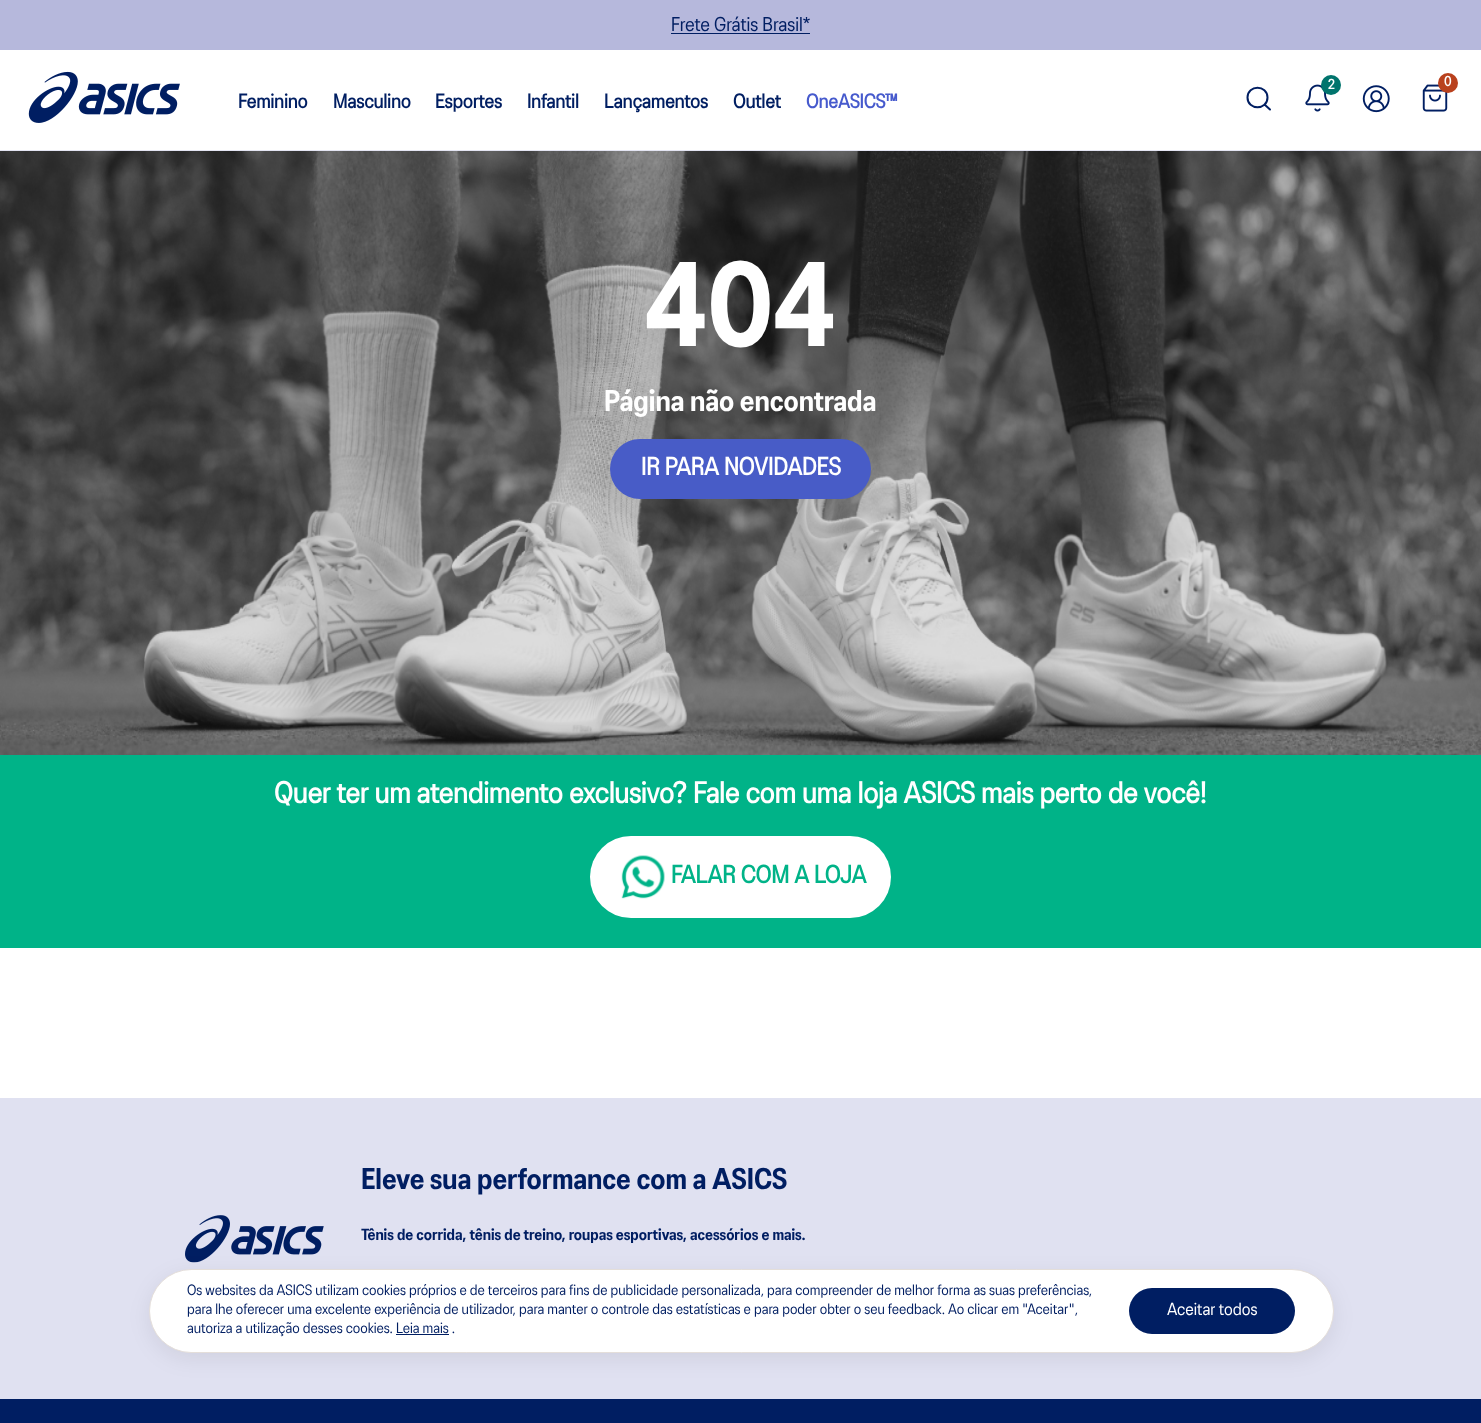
<!DOCTYPE html>
<meta charset="utf-8">
<style>body { margin: 0 } canvas { display: block }</style>
<canvas id="canvas" width="1481" height="1423"></canvas>
<img id="img1" src="img_01.png" hidden>
<img id="img2" src="img_02.png" hidden>
<img id="img3" src="img_03.png" hidden>
<img id="img4" src="img_04.png" hidden>
<img id="img5" src="img_07.png" hidden>
<img id="img6" src="img_05.png" hidden>
<img id="img7" src="img_06.png" hidden>
<script>
window.onload = function () {
	const canvas = document.getElementById("canvas");
	const ctx = canvas.getContext("2d");
	ctx.miterLimit = 4;
	ctx.fontKerning = "normal";
	function txt(s, x, y) {
		ctx.fillText(s, x, y);
	}
	function fill(x, y, w, h) {
		ctx.fillRect(x, y, w, h);
	}
	function round(x, y, w, h, r) {
		ctx.beginPath();
		ctx.roundRect(x, y, w, h, r);
		ctx.fill();
	}
	function img(id, x, y, w, h) {
		ctx.drawImage(document.getElementById(id), x, y, w, h);
	}

	ctx.fillStyle = "#FFFFFF";
	fill(0, 0, 1481, 1423);
	ctx.fillStyle = "#E4E5F3";
	fill(0, 150, 1481, 1);
	ctx.fillStyle = "#B6B8DC";
	fill(0, 0, 1481, 50);
	ctx.fillStyle = "#001E62";
	fill(671, 33, 139, 1);
	img("img1", 28, 71, 152, 52);
	img("img2", 1305, 84, 25, 28);
	ctx.fillStyle = "#00746D";
	ctx.beginPath();
	ctx.arc(1331, 85, 10, 0, Math.PI * 2);
	ctx.fill();
	img("img3", 1422, 84, 26, 28);
	ctx.fillStyle = "#B9411D";
	ctx.beginPath();
	ctx.arc(1448, 83, 10, 0, Math.PI * 2);
	ctx.fill();
	ctx.beginPath();
	ctx.moveTo(1270, 109.5);
	ctx.lineTo(1264.5, 104.5);
	ctx.moveTo(1267.5, 97.5);
	ctx.bezierCurveTo(1267.5, 110.5, 1247.5, 110.5, 1247.5, 97.5);
	ctx.bezierCurveTo(1247.5, 84.5, 1267.5, 84.5, 1267.5, 97.5);
	ctx.closePath();
	ctx.strokeStyle = "#001E62";
	ctx.lineWidth = 2;
	ctx.lineCap = "round";
	ctx.lineJoin = "round";
	ctx.stroke();
	img("img4", 1362, 85, 28, 28);
	ctx.fillStyle = "#E0E1F1";
	fill(0, 1098, 1481, 301);
	img("img5", 185, 1215, 139, 48);
	ctx.fillStyle = "rgba(0, 0, 0, 0.07)";
	ctx.filter = "blur(10.5px)";
	ctx.beginPath();
	ctx.roundRect(149, 1275, 1185, 84, 42);
	ctx.fill();
	ctx.filter = "none";
	ctx.fillStyle = "#FFFFFF";
	ctx.beginPath();
	ctx.roundRect(149.5, 1269.5, 1184, 83, 41.5);
	ctx.fill();
	ctx.strokeStyle = "#E4DEDA";
	ctx.lineWidth = 1;
	ctx.lineJoin = "miter";
	ctx.stroke();
	ctx.fillStyle = "#001E62";
	fill(396, 1334, 53, 1);
	round(1129, 1288, 166, 46, 23);
	img("img6", 0, 151, 1481, 604);
	ctx.fillStyle = "#485CC7";
	round(610, 439, 261, 60, 30);
	ctx.fillStyle = "#00B388";
	fill(0, 755, 1481, 193);
	ctx.fillStyle = "#FFFFFF";
	round(590, 836, 301, 82, 41);
	img("img7", 621, 855, 44, 44);
	ctx.fillStyle = "#001E62";
	fill(0, 1399, 1481, 24);
	ctx.font = "20px 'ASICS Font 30'";
	txt("Frete Grátis Brasil*", 671, 31);
	ctx.font = "bold 14px 'ASICS Font 30'";
	ctx.fillStyle = "#FFFFFF";
	txt("2", 1328, 89);
	txt("0", 1444, 86);
	ctx.font = "bold 20px 'ASICS Font 30'";
	ctx.fillStyle = "#001E62";
	txt("Feminino", 238, 108);
	txt("Masculino", 333, 108);
	txt("Esportes", 435, 108);
	txt("Infantil", 527, 108);
	txt("Lançamentos", 604, 108);
	txt("Outlet", 733, 108);
	ctx.fillStyle = "#465ACD";
	txt("OneASICS™", 806, 108);
	ctx.font = "15px 'ASICS Font 30'";
	ctx.fillStyle = "#001E62";
	txt("Os websites da ASICS utilizam cookies próprios e de terceiros para fins de publicidade personalizada, para compreender de melhor forma as suas preferências,", 187, 1295);
	txt("para lhe oferecer uma excelente experiência de utilizador, para manter o controle das estatísticas e para poder obter o seu feedback. Ao clicar em \"Aceitar\",", 187, 1314);
	txt("autoriza a utilização desses cookies. Leia mais .", 187, 1333);
	ctx.font = "17.5px 'ASICS Font 30'";
	ctx.fillStyle = "#FFFFFF";
	txt("Aceitar todos", 1167, 1315);
	ctx.font = "bold 120px 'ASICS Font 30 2'";
	txt("404", 645, 346);
	ctx.font = "bold 30px 'ASICS Font 30 2'";
	txt("Página não encontrada", 604, 411);
	ctx.font = "bold 25px 'ASICS Font 30'";
	txt("IR PARA NOVIDADES", 641, 475);
	ctx.font = "bold 30px 'ASICS Font 30'";
	txt("Quer ter um atendimento exclusivo? Fale com uma loja ASICS mais perto de você!", 274, 803);
	ctx.font = "bold 25px 'ASICS Font 30'";
	ctx.fillStyle = "#00B388";
	txt("FALAR COM A LOJA", 671, 883);
	ctx.font = "bold 30px 'ASICS Font 30 2'";
	ctx.fillStyle = "#001E62";
	txt("Eleve sua performance com a ASICS", 361, 1189);
	ctx.font = "bold 16.25px 'ASICS Font 30 2'";
	txt("Tênis de corrida, tênis de treino, roupas esportivas, acessórios e mais.", 361, 1240);
};
</script>
